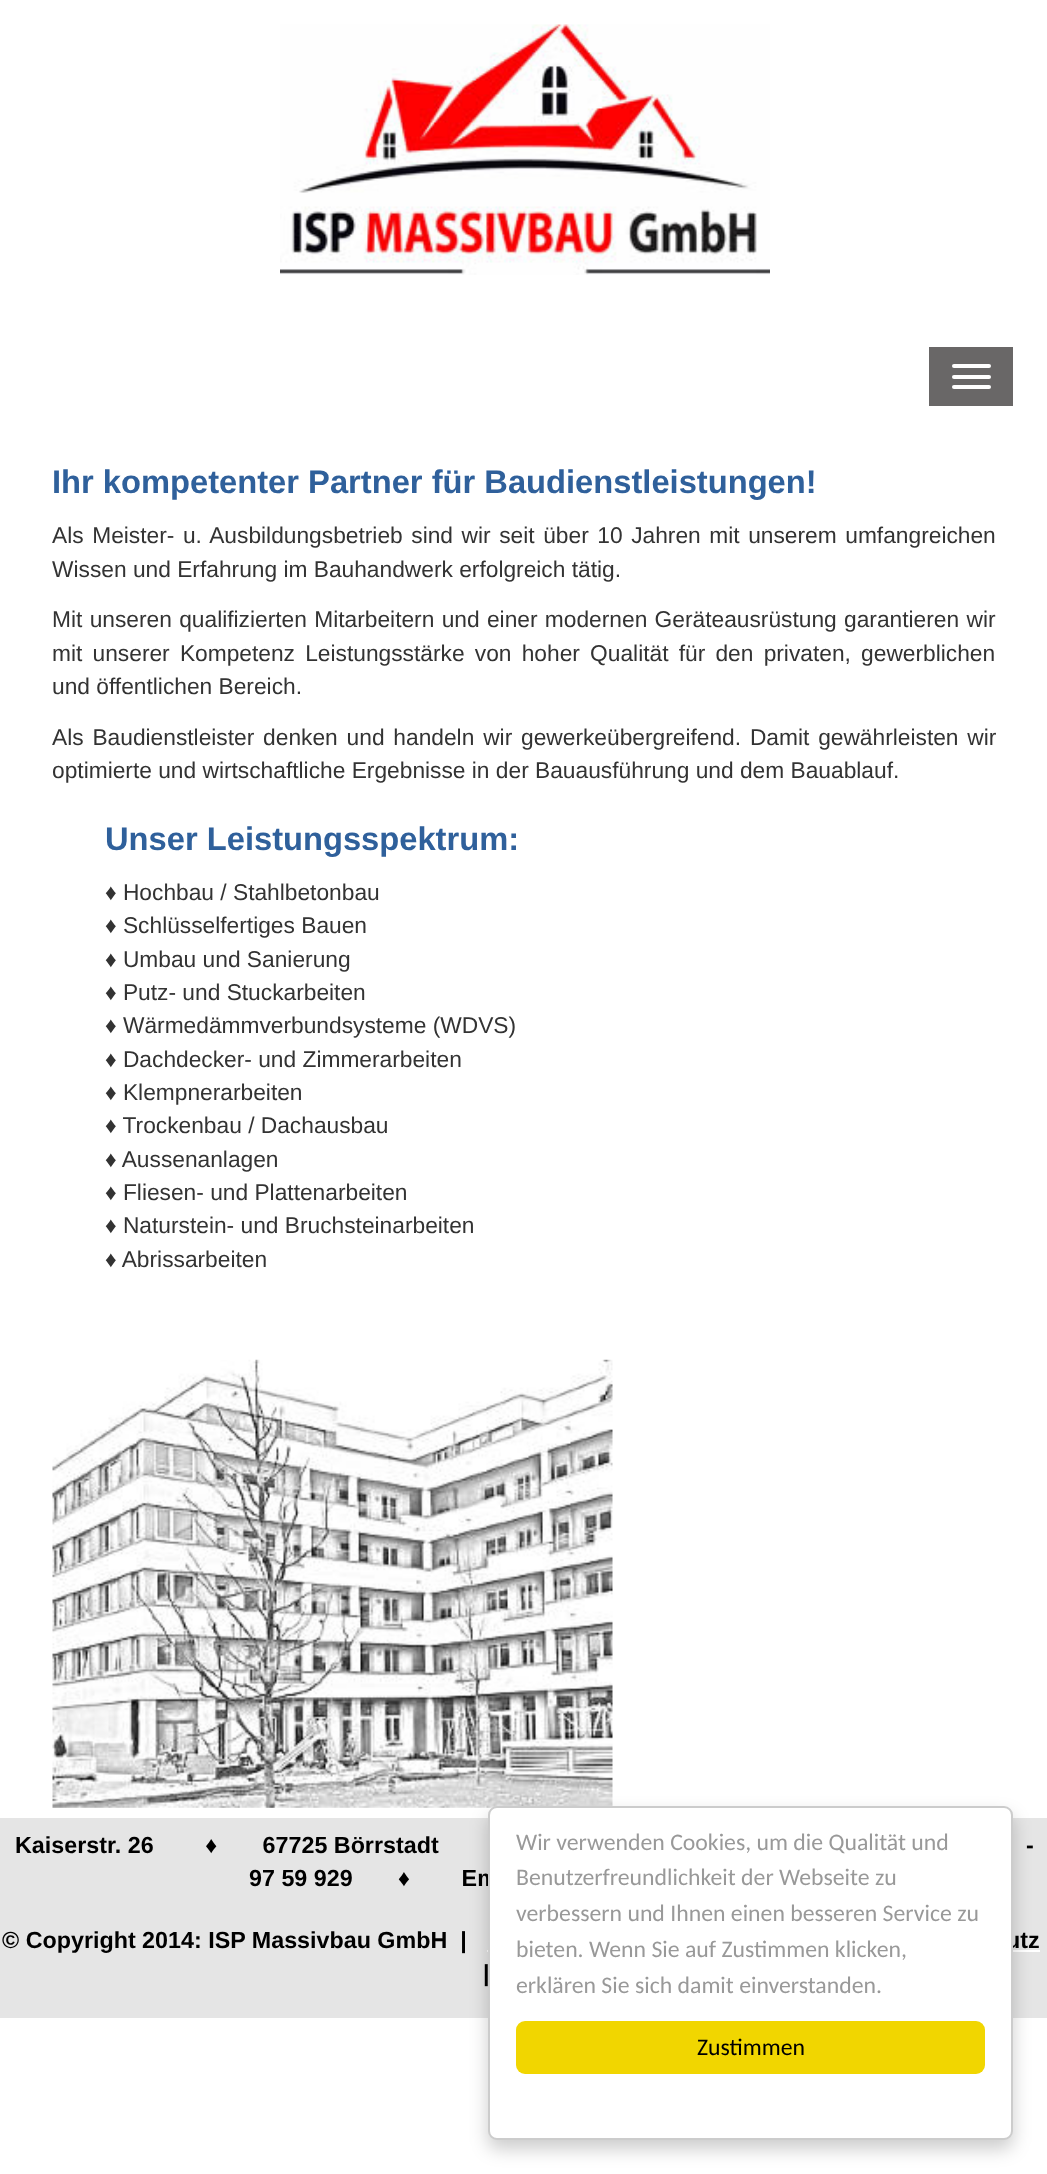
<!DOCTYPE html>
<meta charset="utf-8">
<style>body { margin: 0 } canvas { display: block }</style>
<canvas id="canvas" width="1047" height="2174"></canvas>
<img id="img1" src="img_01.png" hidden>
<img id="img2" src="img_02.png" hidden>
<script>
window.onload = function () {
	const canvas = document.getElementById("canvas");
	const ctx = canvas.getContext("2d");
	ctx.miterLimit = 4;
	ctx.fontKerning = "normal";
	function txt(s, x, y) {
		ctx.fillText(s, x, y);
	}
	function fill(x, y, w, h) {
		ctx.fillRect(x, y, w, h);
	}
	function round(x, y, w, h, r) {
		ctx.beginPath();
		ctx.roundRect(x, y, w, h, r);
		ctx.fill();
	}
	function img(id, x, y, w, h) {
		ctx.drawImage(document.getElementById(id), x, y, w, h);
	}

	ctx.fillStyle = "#FFFFFF";
	fill(0, 0, 1047, 2174);
	img("img1", 280, 24, 490, 251);
	ctx.fillStyle = "#696767";
	fill(929, 347, 84, 59);
	ctx.fillStyle = "#FFFFFF";
	round(952, 364, 39, 4, 2);
	round(952, 375, 39, 4, 2);
	round(952, 385, 39, 4, 2);
	img("img2", 52, 1359, 561, 449);
	ctx.fillStyle = "#E5E5E5";
	fill(0, 1818, 1047, 200);
	ctx.fillStyle = "#FFFFFF";
	fill(487, 1950, 1, 2);
	fill(1013, 1950, 27, 2);
	ctx.fillStyle = "rgba(0, 0, 0, 0.2)";
	ctx.filter = "blur(9px)";
	ctx.beginPath();
	ctx.roundRect(488, 1815, 525, 334, 9);
	ctx.fill();
	ctx.filter = "none";
	ctx.font = "bold 32.7px Liberation Sans";
	ctx.fillStyle = "#2F609B";
	txt("Ihr kompetenter Partner für Baudienstleistungen!", 52, 493);
	ctx.wordSpacing = "2.25px";
	ctx.font = "22.75px Liberation Sans";
	ctx.fillStyle = "#333333";
	txt("Als Meister- u. Ausbildungsbetrieb sind wir seit über 10 Jahren mit unserem umfangreichen", 52, 543);
	ctx.wordSpacing = "0px";
	txt("Wissen und Erfahrung im Bauhandwerk erfolgreich tätig.", 52, 577);
	ctx.wordSpacing = "1px";
	txt("Mit unseren qualifizierten Mitarbeitern und einer modernen Geräteausrüstung garantieren wir", 52, 627);
	ctx.wordSpacing = "3.9px";
	txt("mit unserer Kompetenz Leistungsstärke von hoher Qualität für den privaten, gewerblichen", 52, 661);
	ctx.wordSpacing = "0px";
	txt("und öffentlichen Bereich.", 52, 694);
	ctx.wordSpacing = "2.5px";
	txt("Als Baudienstleister denken und handeln wir gewerkeübergreifend. Damit gewährleisten wir", 52, 745);
	ctx.wordSpacing = "0px";
	txt("optimierte und wirtschaftliche Ergebnisse in der Bauausführung und dem Bauablauf.", 52, 778);
	ctx.font = "bold 32.7px Liberation Sans";
	ctx.fillStyle = "#2F609B";
	txt("Unser Leistungsspektrum:", 105, 850);
	ctx.font = "22.75px Liberation Sans";
	ctx.fillStyle = "#333333";
	txt("♦ Hochbau / Stahlbetonbau", 105, 900);
	txt("♦ Schlüsselfertiges Bauen", 105, 933);
	txt("♦ Umbau und Sanierung", 105, 967);
	txt("♦ Putz- und Stuckarbeiten", 105, 1000);
	txt("♦ Wärmedämmverbundsysteme (WDVS)", 105, 1033);
	txt("♦ Dachdecker- und Zimmerarbeiten", 105, 1067);
	txt("♦ Klempnerarbeiten", 105, 1100);
	txt("♦ Trockenbau / Dachausbau", 105, 1133);
	txt("♦ Aussenanlagen", 105, 1167);
	txt("♦ Fliesen- und Plattenarbeiten", 105, 1200);
	txt("♦ Naturstein- und Bruchsteinarbeiten", 105, 1233);
	txt("♦ Abrissarbeiten", 105, 1267);
	ctx.font = "bold 23.3px Liberation Sans";
	ctx.fillStyle = "#000000";
	txt("Kaiserstr. 26        ♦       67725 Börrstadt", 15, 1853);
	txt("-", 1026, 1853);
	txt("97 59 929       ♦        Em", 249, 1886);
	txt("© Copyright 2014: ISP Massivbau GmbH  |", 2, 1948);
	txt("utz", 1006, 1948);
	txt("|", 483, 1981);
	ctx.fillStyle = "#FFFFFF";
	ctx.beginPath();
	ctx.roundRect(489, 1807, 523, 332, 8);
	ctx.fill();
	ctx.strokeStyle = "#CCCCCC";
	ctx.lineWidth = 2;
	ctx.stroke();
	ctx.font = "23.75px Carlito";
	ctx.fillStyle = "#999999";
	txt("Wir verwenden Cookies, um die Qualität und", 516, 1850);
	txt("Benutzerfreundlichkeit der Webseite zu", 516, 1885);
	txt("verbessern und Ihnen einen besseren Service zu", 516, 1921);
	txt("bieten. Wenn Sie auf Zustimmen klicken,", 516, 1957);
	txt("erklären Sie sich damit einverstanden.", 516, 1993);
	ctx.fillStyle = "#F1D600";
	round(516, 2021, 469, 53, 9);
	ctx.fillStyle = "#000000";
	txt("Zustimmen", 697, 2055);
};
</script>
